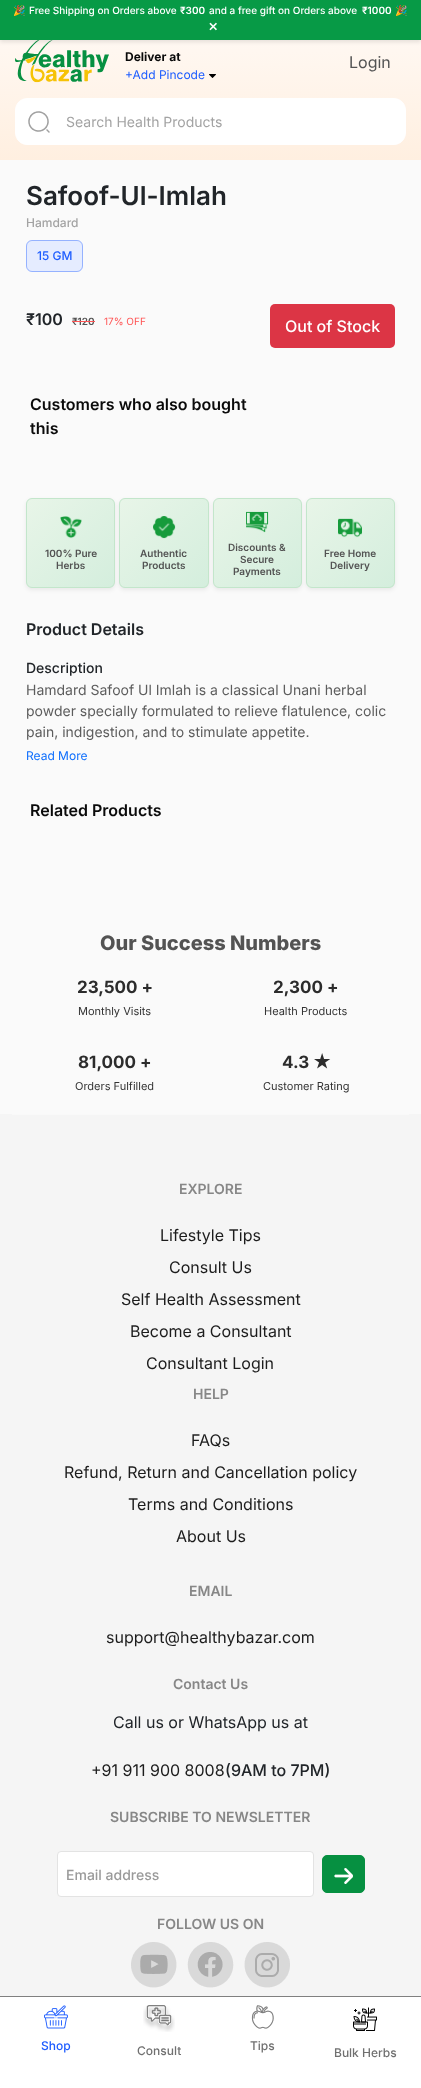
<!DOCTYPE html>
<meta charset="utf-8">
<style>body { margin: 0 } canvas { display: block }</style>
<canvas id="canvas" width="421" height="2088"></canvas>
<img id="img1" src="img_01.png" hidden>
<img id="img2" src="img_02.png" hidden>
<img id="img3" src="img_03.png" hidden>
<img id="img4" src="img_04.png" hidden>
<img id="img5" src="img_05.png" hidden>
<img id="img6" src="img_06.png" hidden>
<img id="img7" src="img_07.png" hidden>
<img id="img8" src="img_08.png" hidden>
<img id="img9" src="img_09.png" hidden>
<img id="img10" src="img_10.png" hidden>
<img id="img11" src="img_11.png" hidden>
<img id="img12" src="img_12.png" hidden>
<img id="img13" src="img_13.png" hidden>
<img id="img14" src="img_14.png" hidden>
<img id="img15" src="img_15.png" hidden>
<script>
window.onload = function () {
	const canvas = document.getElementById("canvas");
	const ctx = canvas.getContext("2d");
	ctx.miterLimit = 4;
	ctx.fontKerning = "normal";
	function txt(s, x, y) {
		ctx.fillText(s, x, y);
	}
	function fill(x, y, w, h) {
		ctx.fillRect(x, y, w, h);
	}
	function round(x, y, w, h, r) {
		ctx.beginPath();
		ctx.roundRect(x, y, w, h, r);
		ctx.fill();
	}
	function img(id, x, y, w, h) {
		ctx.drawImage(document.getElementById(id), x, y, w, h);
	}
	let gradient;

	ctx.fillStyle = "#FAFAFA";
	fill(0, 0, 421, 2088);
	gradient = ctx.createLinearGradient(211, 160, 211, 24);
	gradient.addColorStop(0, "#FFEFE0");
	gradient.addColorStop(1, "#FFF9F4");
	ctx.fillStyle = gradient;
	fill(0, 40, 421, 120);
	img("img1", 15, 40, 94, 43);
	ctx.fillStyle = "rgba(0, 0, 0, 0.1)";
	ctx.filter = "blur(2px)";
	ctx.beginPath();
	ctx.rect(0, 2, 421, 40);
	ctx.fill();
	ctx.filter = "none";
	ctx.fillStyle = "#079A46";
	fill(0, 0, 421, 40);
	img("img2", 209, 74, 7, 4);
	ctx.fillStyle = "#FFFFFF";
	ctx.beginPath();
	ctx.roundRect(15.5, 98.5, 390, 46, 11.5);
	ctx.fill();
	ctx.strokeStyle = "#FFFFFF";
	ctx.stroke();
	img("img3", 28, 111, 22, 22);
	ctx.fillStyle = "#E5ECFF";
	round(26, 240, 57, 32, 6);
	ctx.beginPath();
	ctx.roundRect(26.5, 240.5, 56, 31, 5.5);
	ctx.strokeStyle = "rgba(29, 92, 255, 0.4)";
	ctx.stroke();
	ctx.fillStyle = "#DC3545";
	round(270, 304, 125, 44, 5);
	ctx.fillStyle = "rgba(0, 0, 0, 0.07)";
	ctx.filter = "blur(2px)";
	ctx.beginPath();
	ctx.roundRect(26, 500, 89, 90, 6);
	ctx.fill();
	ctx.filter = "none";
	ctx.save();
	ctx.beginPath();
	ctx.roundRect(26, 498, 89, 90, 6);
	ctx.clip();
	gradient = ctx.createLinearGradient(27, 499, 114, 587);
	gradient.addColorStop(0, "#E8F5E8");
	gradient.addColorStop(1, "#D4EEDD");
	ctx.fillStyle = gradient;
	fill(27, 499, 87, 88);
	ctx.restore();
	ctx.beginPath();
	ctx.roundRect(26.5, 498.5, 88, 89, 5.5);
	ctx.strokeStyle = "#C3E6CB";
	ctx.stroke();
	img("img4", 60, 516, 22, 23);
	ctx.filter = "blur(2px)";
	ctx.beginPath();
	ctx.roundRect(119, 500, 90, 90, 6);
	ctx.fill();
	ctx.filter = "none";
	ctx.save();
	ctx.beginPath();
	ctx.roundRect(119, 498, 90, 90, 6);
	ctx.clip();
	gradient = ctx.createLinearGradient(120, 499, 208, 587);
	gradient.addColorStop(0, "#E8F5E8");
	gradient.addColorStop(1, "#D4EEDD");
	ctx.fillStyle = gradient;
	fill(120, 499, 88, 88);
	ctx.restore();
	ctx.beginPath();
	ctx.roundRect(119.5, 498.5, 89, 89, 5.5);
	ctx.stroke();
	img("img5", 153, 516, 23, 23);
	ctx.filter = "blur(2px)";
	ctx.beginPath();
	ctx.roundRect(213, 500, 89, 90, 6);
	ctx.fill();
	ctx.filter = "none";
	ctx.save();
	ctx.beginPath();
	ctx.roundRect(213, 498, 89, 90, 6);
	ctx.clip();
	gradient = ctx.createLinearGradient(214, 499, 301, 587);
	gradient.addColorStop(0, "#E8F5E8");
	gradient.addColorStop(1, "#D4EEDD");
	ctx.fillStyle = gradient;
	fill(214, 499, 87, 88);
	ctx.restore();
	ctx.beginPath();
	ctx.roundRect(213.5, 498.5, 88, 89, 5.5);
	ctx.stroke();
	img("img6", 246, 511, 23, 22);
	ctx.filter = "blur(2px)";
	ctx.beginPath();
	ctx.roundRect(306, 500, 89, 90, 6);
	ctx.fill();
	ctx.filter = "none";
	ctx.save();
	ctx.beginPath();
	ctx.roundRect(306, 498, 89, 90, 6);
	ctx.clip();
	gradient = ctx.createLinearGradient(307, 499, 394, 587);
	gradient.addColorStop(0, "#E8F5E8");
	gradient.addColorStop(1, "#D4EEDD");
	ctx.fillStyle = gradient;
	fill(307, 499, 87, 88);
	ctx.restore();
	ctx.beginPath();
	ctx.roundRect(306.5, 498.5, 88, 89, 5.5);
	ctx.stroke();
	img("img7", 338, 518, 24, 20);
	ctx.fillStyle = "#F5F5F5";
	fill(0, 1114, 421, 882);
	ctx.fillStyle = "#F9F9F9";
	fill(12, 1114, 397, 1);
	ctx.fillStyle = "#FFFFFF";
	ctx.beginPath();
	ctx.roundRect(57.5, 1851.5, 256, 45, 3.5);
	ctx.fill();
	ctx.strokeStyle = "#E3E3E3";
	ctx.stroke();
	ctx.fillStyle = "#069041";
	ctx.beginPath();
	ctx.roundRect(322.5, 1855.5, 42, 37, 4.5);
	ctx.fill();
	ctx.strokeStyle = "#069041";
	ctx.stroke();
	img("img8", 334, 1868, 19, 16);
	img("img9", 131, 1942, 46, 46);
	img("img10", 187, 1942, 47, 46);
	img("img11", 244, 1942, 46, 46);
	ctx.fillStyle = "#FFFFFF";
	fill(0, 1997, 421, 91);
	ctx.fillStyle = "#808080";
	fill(0, 1996, 421, 1);
	img("img12", 44, 2005, 24, 24);
	img("img13", 143, 2005, 32, 27);
	img("img14", 251, 2005, 23, 24);
	img("img15", 353, 2007, 24, 24);
	ctx.font = "10px Noto Color Emoji";
	ctx.fillStyle = "#FFFFFF";
	txt("🎉", 13, 14);
	ctx.font = "500 10px Inter";
	txt("Free Shipping on Orders above", 29, 14);
	ctx.font = "600 10px Inter";
	txt("₹300", 180, 14);
	ctx.font = "500 10px Inter";
	txt("and a free gift on Orders above", 209, 14);
	ctx.font = "600 10px Inter";
	txt("₹1000", 362, 14);
	ctx.font = "10px Noto Color Emoji";
	txt("🎉", 395, 14);
	ctx.font = "bold 12px DejaVu Sans";
	txt("✕", 208, 31);
	ctx.font = "bold 12px Inter";
	ctx.fillStyle = "#0A0A0A";
	txt("Deliver at", 125, 61);
	ctx.font = "12px Inter";
	ctx.fillStyle = "#1D5CFF";
	txt("+Add Pincode", 125, 79);
	ctx.font = "16px Inter";
	ctx.fillStyle = "#535353";
	txt("Login", 349, 68);
	ctx.font = "14px Inter";
	ctx.fillStyle = "#A3A3A3";
	txt("Search Health Products", 66, 127);
	ctx.font = "600 26px Inter";
	ctx.fillStyle = "#212529";
	txt("Safoof-Ul-Imlah", 26, 205);
	ctx.font = "500 12px Inter";
	ctx.fillStyle = "#A3A3A3";
	txt("Hamdard", 26, 227);
	ctx.fillStyle = "#1D5CFF";
	txt("15 GM", 37, 260);
	ctx.font = "600 16px Inter";
	ctx.fillStyle = "#212529";
	txt("₹100", 26, 325);
	ctx.font = "600 10px Inter";
	ctx.fillStyle = "#535353";
	txt("₹120", 72, 325);
	ctx.fillStyle = "#FF5454";
	fill(72, 321, 23, 1);
	ctx.font = "10px Inter";
	txt("17% OFF", 104, 325);
	ctx.font = "500 16px Inter";
	ctx.fillStyle = "#FFFFFF";
	txt("Out of Stock", 285, 332);
	ctx.font = "600 16px Inter";
	ctx.fillStyle = "#0A0A0A";
	txt("Customers who also bought", 30, 410);
	txt("this", 30, 434);
	ctx.font = "600 10px Inter";
	ctx.fillStyle = "#535353";
	txt("100% Pure", 45, 557);
	txt("Herbs", 56, 569);
	txt("Authentic", 140, 557);
	txt("Products", 142, 569);
	txt("Discounts &", 228, 551);
	txt("Secure", 240, 563);
	txt("Payments", 233, 575);
	txt("Free Home", 324, 557);
	txt("Delivery", 330, 569);
	ctx.font = "600 16px Inter";
	ctx.fillStyle = "#212529";
	txt("Product Details", 26, 635);
	ctx.font = "500 14px Inter";
	txt("Description", 26, 673);
	ctx.font = "14px Inter";
	ctx.fillStyle = "#5D5D5D";
	txt("Hamdard Safoof Ul Imlah is a classical Unani herbal", 26, 695);
	txt("powder specially formulated to relieve flatulence, colic", 26, 716);
	txt("pain, indigestion, and to stimulate appetite.", 26, 737);
	ctx.font = "12px Inter";
	ctx.fillStyle = "#0D6EFD";
	txt("Read More", 26, 760);
	ctx.font = "600 16px Inter";
	ctx.fillStyle = "#0A0A0A";
	txt("Related Products", 30, 816);
	ctx.font = "800 20px Inter";
	ctx.fillStyle = "#535353";
	txt("Our Success Numbers", 100, 950);
	ctx.font = "bold 17px Inter";
	ctx.fillStyle = "#2C2C2C";
	txt("23,500 +", 77, 993);
	ctx.font = "11px Inter";
	ctx.fillStyle = "#333333";
	txt("Monthly Visits", 78, 1015);
	ctx.font = "bold 17px Inter";
	ctx.fillStyle = "#2C2C2C";
	txt("2,300 +", 273, 993);
	ctx.font = "11px Inter";
	ctx.fillStyle = "#333333";
	txt("Health Products", 264, 1015);
	ctx.font = "bold 17px Inter";
	ctx.fillStyle = "#2C2C2C";
	txt("81,000 +", 78, 1068);
	ctx.font = "11px Inter";
	ctx.fillStyle = "#333333";
	txt("Orders Fulfilled", 75, 1090);
	ctx.font = "bold 17px Inter";
	ctx.fillStyle = "#2C2C2C";
	txt("4.3", 282, 1068);
	ctx.font = "bold 17px 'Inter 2'";
	txt("★", 313, 1068);
	ctx.font = "11px Inter";
	ctx.fillStyle = "#333333";
	txt("Customer Rating", 263, 1090);
	ctx.font = "600 14px Inter";
	ctx.fillStyle = "#878787";
	txt("EXPLORE", 179, 1194);
	ctx.font = "16px Inter";
	ctx.fillStyle = "#1C1C1C";
	txt("Lifestyle Tips", 160, 1241);
	txt("Consult Us", 169, 1273);
	txt("Self Health Assessment", 121, 1305);
	txt("Become a Consultant", 130, 1337);
	txt("Consultant Login", 146, 1369);
	ctx.font = "600 14px Inter";
	ctx.fillStyle = "#878787";
	txt("HELP", 193, 1399);
	ctx.font = "16px Inter";
	ctx.fillStyle = "#1C1C1C";
	txt("FAQs", 191, 1446);
	txt("Refund, Return and Cancellation policy", 64, 1478);
	txt("Terms and Conditions", 128, 1510);
	txt("About Us", 176, 1542);
	ctx.font = "600 14px Inter";
	ctx.fillStyle = "#878787";
	txt("EMAIL", 189, 1596);
	ctx.font = "16px Inter";
	ctx.fillStyle = "#1C1C1C";
	txt("support@healthybazar.com", 106, 1643);
	ctx.font = "600 14px Inter";
	ctx.fillStyle = "#878787";
	txt("Contact Us", 173, 1689);
	ctx.font = "16px Inter";
	ctx.fillStyle = "#212529";
	txt("Call us or WhatsApp us at", 113, 1728);
	ctx.fillStyle = "#1C1C1C";
	txt("+91 911 900 8008", 91, 1776);
	ctx.font = "500 16px Inter";
	ctx.fillStyle = "#212529";
	txt("(9AM to 7PM)", 225, 1776);
	ctx.font = "600 14px Inter";
	ctx.fillStyle = "#878787";
	txt("SUBSCRIBE TO NEWSLETTER", 110, 1822);
	ctx.font = "500 14px Inter";
	ctx.fillStyle = "#9A9A9A";
	txt("Email address", 66, 1880);
	ctx.font = "600 14px Inter";
	ctx.fillStyle = "#878787";
	txt("FOLLOW US ON", 157, 1929);
	ctx.font = "500 12px Inter";
	ctx.fillStyle = "#1D5CFF";
	txt("Shop", 41, 2050);
	ctx.fillStyle = "#707070";
	txt("Consult", 137, 2055);
	txt("Tips", 250, 2050);
	txt("Bulk Herbs", 334, 2057);
};
</script>
